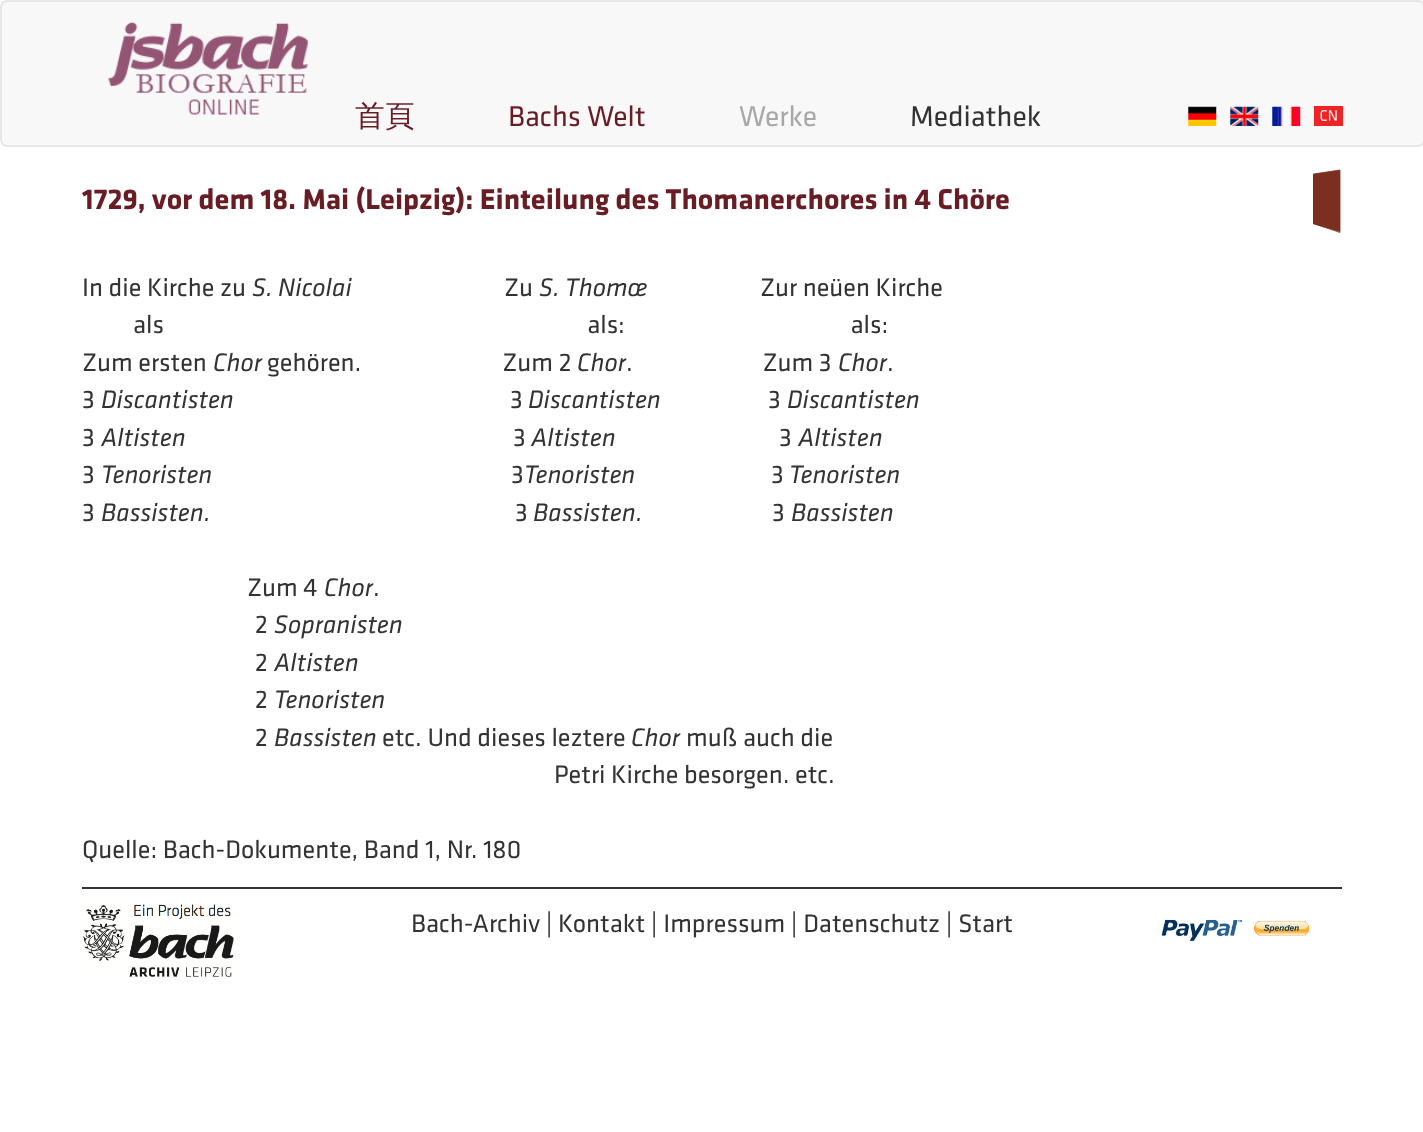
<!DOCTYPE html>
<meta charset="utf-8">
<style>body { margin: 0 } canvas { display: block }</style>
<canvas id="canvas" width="1423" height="1132"></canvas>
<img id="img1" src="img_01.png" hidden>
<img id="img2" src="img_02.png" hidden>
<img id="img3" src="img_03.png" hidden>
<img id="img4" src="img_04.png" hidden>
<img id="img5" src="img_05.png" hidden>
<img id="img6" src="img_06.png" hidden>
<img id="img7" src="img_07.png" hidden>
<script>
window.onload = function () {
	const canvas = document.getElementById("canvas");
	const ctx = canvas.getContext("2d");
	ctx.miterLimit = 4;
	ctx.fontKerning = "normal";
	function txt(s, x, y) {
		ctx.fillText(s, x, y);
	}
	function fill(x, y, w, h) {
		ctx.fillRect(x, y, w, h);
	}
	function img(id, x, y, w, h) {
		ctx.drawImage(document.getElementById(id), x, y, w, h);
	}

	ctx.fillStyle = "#FFFFFF";
	fill(0, 0, 1423, 1132);
	ctx.fillStyle = "#F8F8F8";
	ctx.beginPath();
	ctx.roundRect(1, 1, 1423, 145, 6);
	ctx.fill();
	ctx.strokeStyle = "#E7E7E7";
	ctx.lineWidth = 2;
	ctx.stroke();
	img("img1", 108, 22, 201, 93);
	img("img2", 1188, 106, 29, 20);
	img("img3", 1230, 106, 29, 20);
	img("img4", 1272, 106, 29, 20);
	ctx.fillStyle = "#EE2325";
	fill(1314, 106, 29, 20);
	img("img5", 1320, 110, 17, 11);
	ctx.fillStyle = "#7C2F1E";
	ctx.beginPath();
	ctx.moveTo(1340, 170);
	ctx.lineTo(1313, 174);
	ctx.lineTo(1313, 224);
	ctx.lineTo(1340, 232);
	ctx.closePath();
	ctx.fill();
	ctx.beginPath();
	ctx.moveTo(1340, 170);
	ctx.lineTo(1313.5, 174);
	ctx.lineTo(1313.5, 223.5);
	ctx.lineTo(1340, 232.5);
	ctx.closePath();
	ctx.strokeStyle = "#7C2F1E";
	ctx.lineWidth = 0.8;
	ctx.stroke();
	ctx.fillStyle = "#333333";
	fill(82, 887, 1260, 2);
	img("img6", 83, 904, 151, 73);
	img("img7", 1158, 919, 154, 23);
	ctx.font = "500 29.75px WenQuanYi Zen Hei";
	ctx.fillStyle = "#681D25";
	txt("首頁", 355, 126);
	ctx.font = "29.75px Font";
	txt("Bachs Welt", 508, 126);
	ctx.fillStyle = "#A8A8A8";
	txt("Werke", 739, 126);
	ctx.fillStyle = "#333333";
	txt("Mediathek", 910, 126);
	ctx.font = "bold 29.75px Font";
	ctx.fillStyle = "#681D25";
	txt("1729, vor dem 18. Mai (Leipzig): Einteilung des Thomanerchores in 4 Chöre", 82, 209);
	ctx.font = "26.25px Font";
	ctx.fillStyle = "#333333";
	txt("In die Kirche zu", 82, 296);
	ctx.font = "italic 26.25px Font";
	txt("S. Nicolai", 252, 296);
	ctx.font = "26.25px Font";
	txt("Zu", 504, 296);
	ctx.font = "italic 26.25px Font";
	txt("S. Thomœ", 539, 296);
	ctx.font = "26.25px Font";
	txt("Zur neüen Kirche", 760, 296);
	txt("als                                                                           als:                                        als:", 133, 333);
	txt("Zum ersten", 82, 371);
	ctx.font = "italic 26.25px Font";
	txt("Chor", 213, 371);
	ctx.font = "26.25px Font";
	txt("gehören.                         Zum 2", 267, 371);
	ctx.font = "italic 26.25px Font";
	txt("Chor", 577, 371);
	ctx.font = "26.25px Font";
	txt(".                       Zum 3", 626, 371);
	ctx.font = "italic 26.25px Font";
	txt("Chor", 838, 371);
	ctx.font = "26.25px Font";
	txt(".", 887, 371);
	txt("3", 82, 408);
	ctx.font = "italic 26.25px Font";
	txt("Discantisten", 101, 408);
	ctx.font = "26.25px Font";
	txt("3", 510, 408);
	ctx.font = "italic 26.25px Font";
	txt("Discantisten", 528, 408);
	ctx.font = "26.25px Font";
	txt("3", 768, 408);
	ctx.font = "italic 26.25px Font";
	txt("Discantisten", 787, 408);
	ctx.font = "26.25px Font";
	txt("3", 82, 446);
	ctx.font = "italic 26.25px Font";
	txt("Altisten", 101, 446);
	ctx.font = "26.25px Font";
	txt("3", 513, 446);
	ctx.font = "italic 26.25px Font";
	txt("Altisten", 531, 446);
	ctx.font = "26.25px Font";
	txt("3", 779, 446);
	ctx.font = "italic 26.25px Font";
	txt("Altisten", 798, 446);
	ctx.font = "26.25px Font";
	txt("3", 82, 483);
	ctx.font = "italic 26.25px Font";
	txt("Tenoristen", 101, 483);
	ctx.font = "26.25px Font";
	txt("3", 511, 483);
	ctx.font = "italic 26.25px Font";
	txt("Tenoristen", 524, 483);
	ctx.font = "26.25px Font";
	txt("3", 771, 483);
	ctx.font = "italic 26.25px Font";
	txt("Tenoristen", 789, 483);
	ctx.font = "26.25px Font";
	txt("3", 82, 521);
	ctx.font = "italic 26.25px Font";
	txt("Bassisten.", 101, 521);
	ctx.font = "26.25px Font";
	txt("3", 515, 521);
	ctx.font = "italic 26.25px Font";
	txt("Bassisten.", 533, 521);
	ctx.font = "26.25px Font";
	txt("3", 772, 521);
	ctx.font = "italic 26.25px Font";
	txt("Bassisten", 791, 521);
	ctx.font = "26.25px Font";
	txt("Zum 4", 247, 596);
	ctx.font = "italic 26.25px Font";
	txt("Chor", 324, 596);
	ctx.font = "26.25px Font";
	txt(".", 373, 596);
	txt("2", 255, 633);
	ctx.font = "italic 26.25px Font";
	txt("Sopranisten", 274, 633);
	ctx.font = "26.25px Font";
	txt("2", 255, 671);
	ctx.font = "italic 26.25px Font";
	txt("Altisten", 274, 671);
	ctx.font = "26.25px Font";
	txt("2", 255, 708);
	ctx.font = "italic 26.25px Font";
	txt("Tenoristen", 274, 708);
	ctx.font = "26.25px Font";
	txt("2", 255, 746);
	ctx.font = "italic 26.25px Font";
	txt("Bassisten", 274, 746);
	ctx.font = "26.25px Font";
	txt("etc. Und dieses leztere", 382, 746);
	ctx.font = "italic 26.25px Font";
	txt("Chor", 631, 746);
	ctx.font = "26.25px Font";
	txt("muß auch die", 686, 746);
	txt("Petri Kirche besorgen. etc.", 554, 783);
	txt("Quelle: Bach-Dokumente, Band 1, Nr. 180", 82, 858);
	txt("Bach-Archiv | Kontakt | Impressum | Datenschutz | Start", 411, 932);
};
</script>
